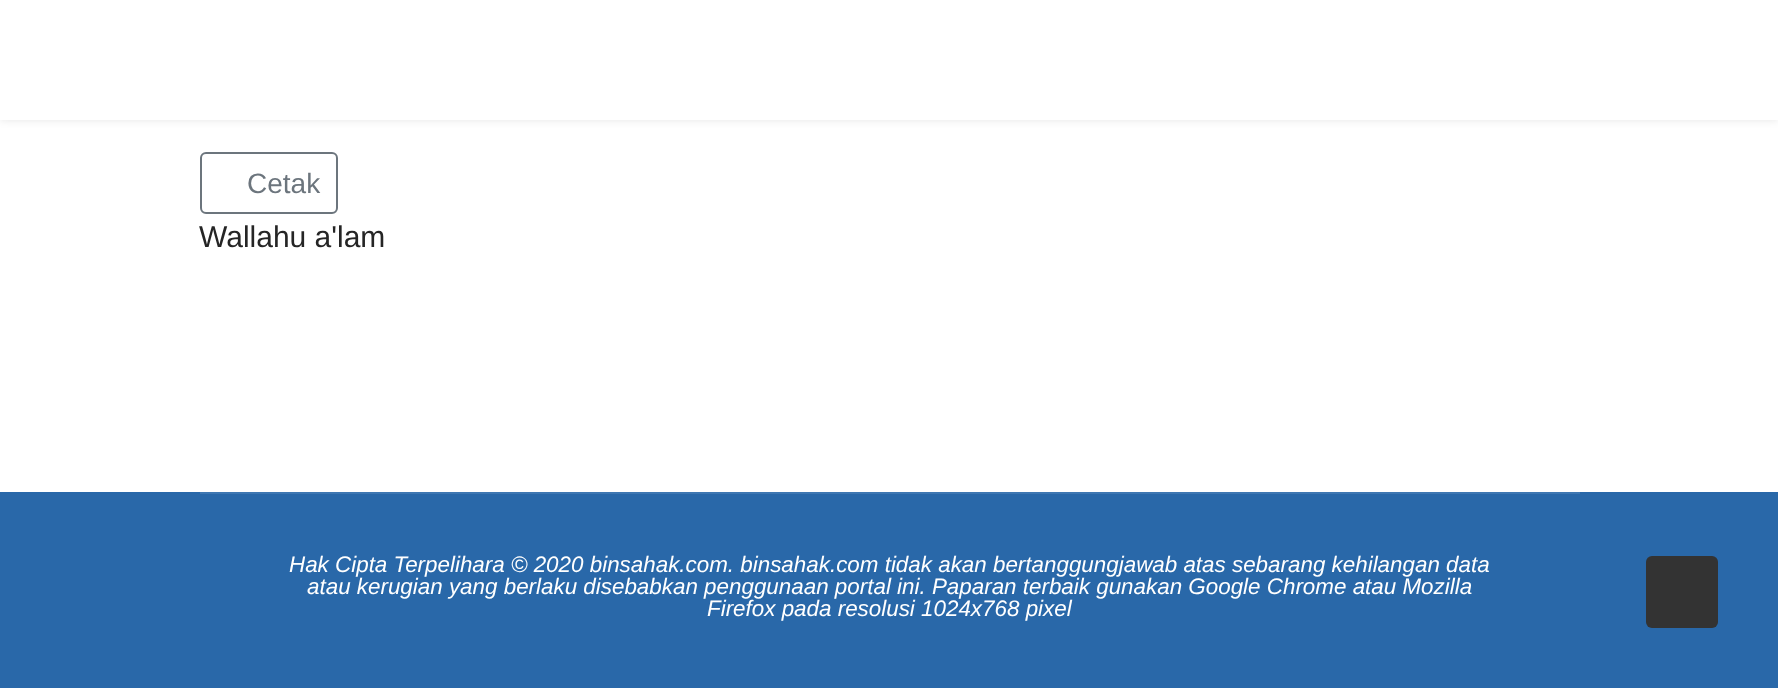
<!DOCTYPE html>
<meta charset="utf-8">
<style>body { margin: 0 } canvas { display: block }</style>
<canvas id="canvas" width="1778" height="688"></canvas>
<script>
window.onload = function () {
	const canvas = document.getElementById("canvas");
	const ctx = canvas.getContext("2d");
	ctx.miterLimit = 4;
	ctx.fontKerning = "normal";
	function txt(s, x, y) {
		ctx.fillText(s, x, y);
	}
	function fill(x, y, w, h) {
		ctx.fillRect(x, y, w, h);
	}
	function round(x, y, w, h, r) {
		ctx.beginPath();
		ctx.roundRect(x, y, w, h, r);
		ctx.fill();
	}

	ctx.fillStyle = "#FFFFFF";
	fill(0, 0, 1778, 688);
	ctx.fillStyle = "rgba(0, 0, 0, 0.1)";
	ctx.filter = "blur(4px)";
	ctx.beginPath();
	ctx.rect(0, 0, 1778, 120);
	ctx.fill();
	ctx.filter = "none";
	ctx.fillStyle = "#FFFFFF";
	fill(0, 0, 1778, 120);
	ctx.beginPath();
	ctx.roundRect(201, 153, 136, 60, 5);
	ctx.strokeStyle = "#6C757D";
	ctx.lineWidth = 2;
	ctx.stroke();
	ctx.fillStyle = "#2968A9";
	fill(0, 492, 1778, 196);
	ctx.fillStyle = "#3E77B2";
	fill(200, 492, 1380, 2);
	ctx.fillStyle = "#333333";
	round(1646, 556, 72, 72, 6);
	ctx.font = "28px Liberation Sans";
	ctx.fillStyle = "#6C757D";
	txt("Cetak", 247, 193);
	ctx.font = "30px Liberation Sans";
	ctx.fillStyle = "#252525";
	txt("Wallahu a'lam", 199, 247);
	ctx.font = "italic 22.4px Liberation Sans";
	ctx.fillStyle = "#FFFFFF";
	txt("Hak Cipta Terpelihara © 2020 binsahak.com. binsahak.com tidak akan bertanggungjawab atas sebarang kehilangan data", 289, 572);
	txt("atau kerugian yang berlaku disebabkan penggunaan portal ini. Paparan terbaik gunakan Google Chrome atau Mozilla", 307, 594);
	txt("Firefox pada resolusi 1024x768 pixel", 707, 616);
};
</script>
